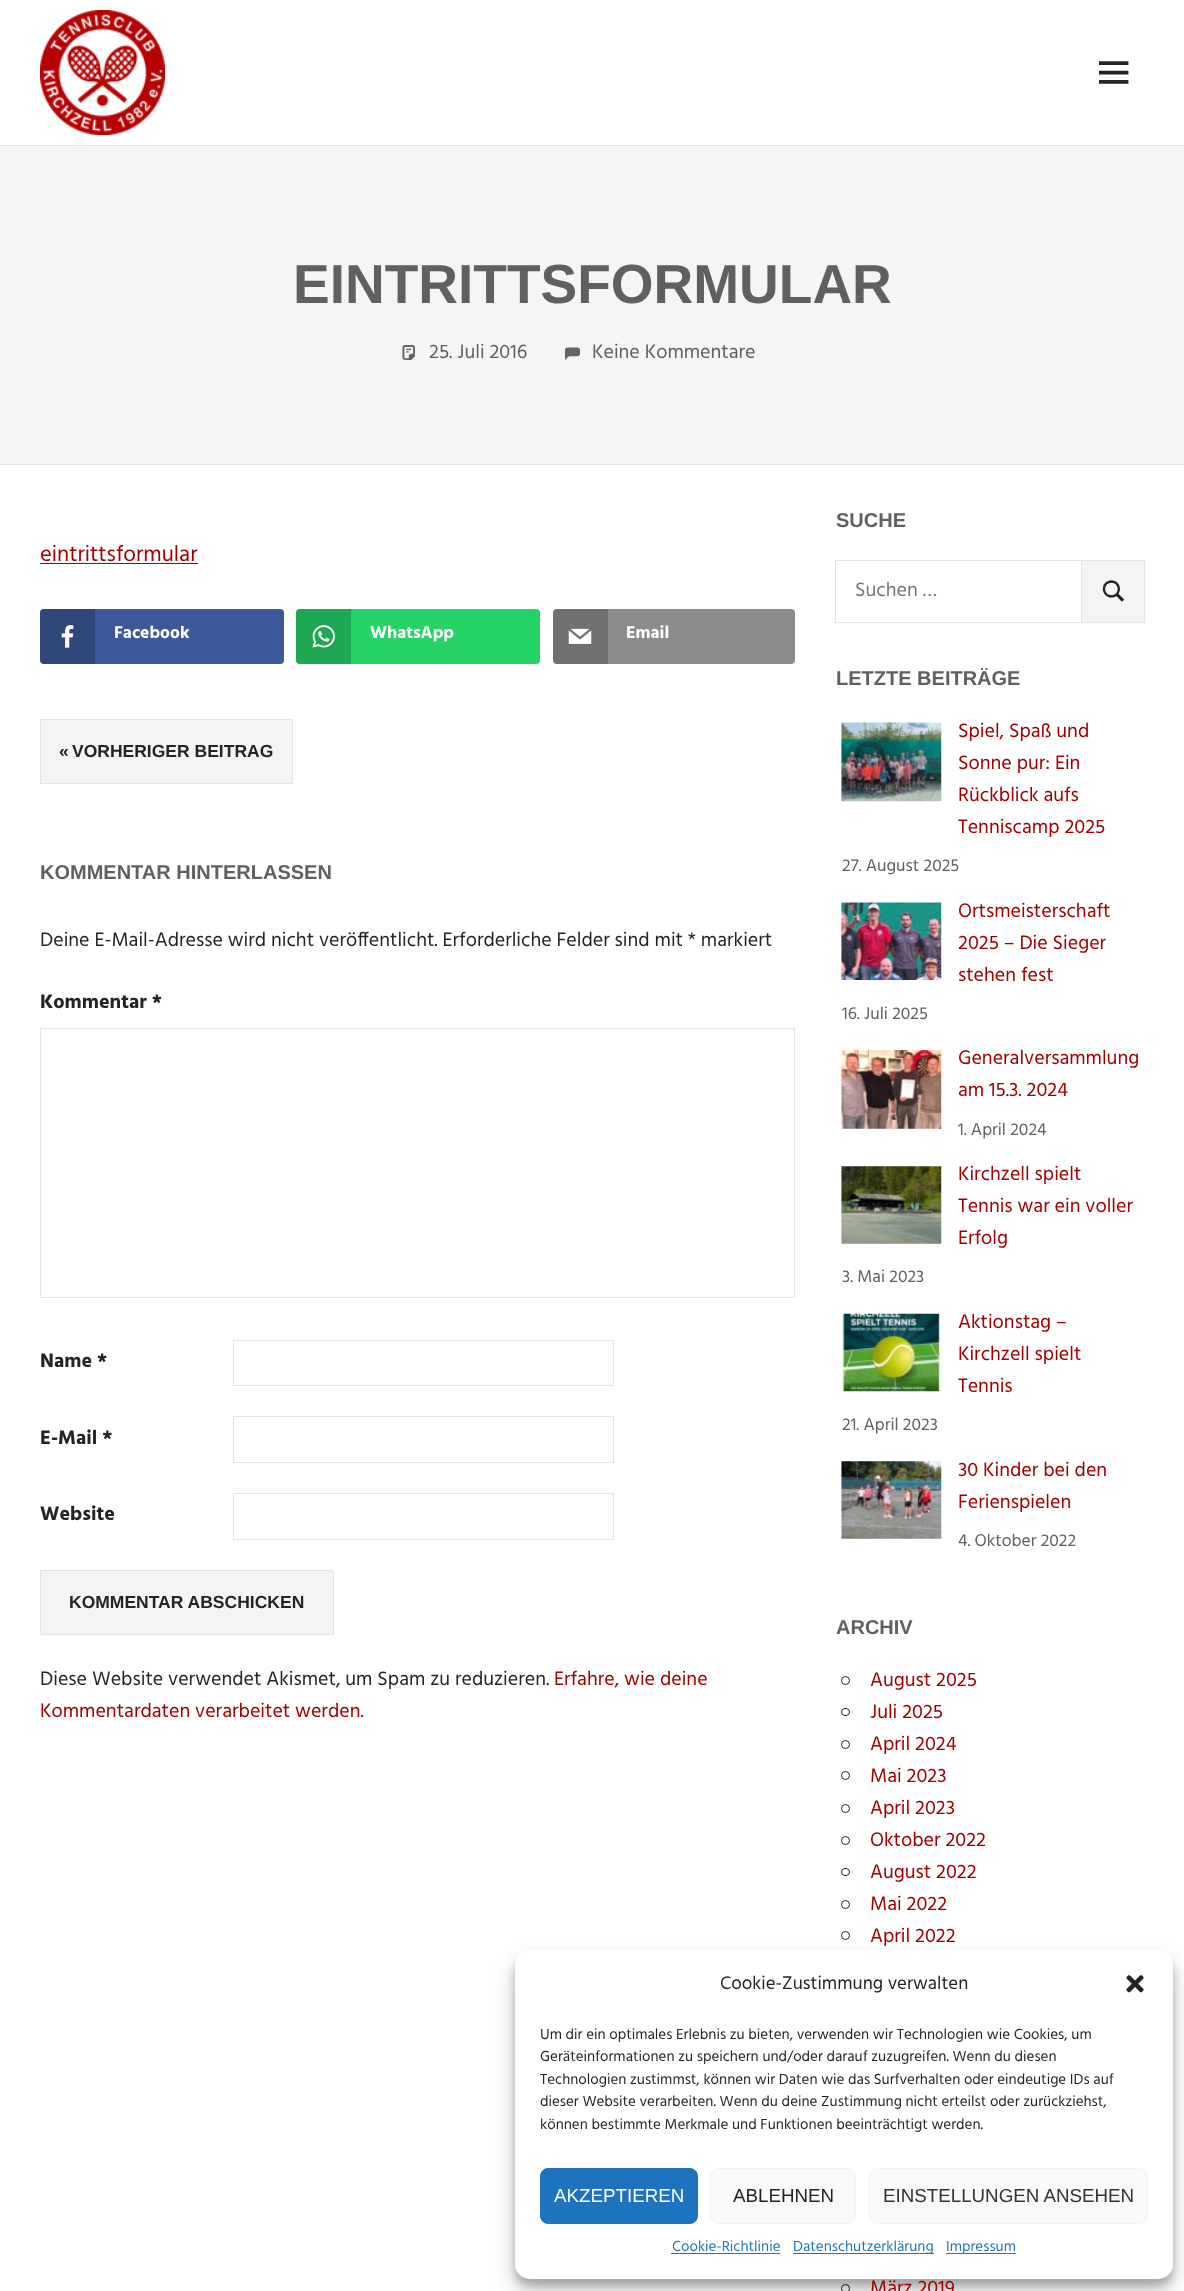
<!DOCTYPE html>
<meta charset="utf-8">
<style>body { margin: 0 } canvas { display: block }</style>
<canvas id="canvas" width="1184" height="2291"></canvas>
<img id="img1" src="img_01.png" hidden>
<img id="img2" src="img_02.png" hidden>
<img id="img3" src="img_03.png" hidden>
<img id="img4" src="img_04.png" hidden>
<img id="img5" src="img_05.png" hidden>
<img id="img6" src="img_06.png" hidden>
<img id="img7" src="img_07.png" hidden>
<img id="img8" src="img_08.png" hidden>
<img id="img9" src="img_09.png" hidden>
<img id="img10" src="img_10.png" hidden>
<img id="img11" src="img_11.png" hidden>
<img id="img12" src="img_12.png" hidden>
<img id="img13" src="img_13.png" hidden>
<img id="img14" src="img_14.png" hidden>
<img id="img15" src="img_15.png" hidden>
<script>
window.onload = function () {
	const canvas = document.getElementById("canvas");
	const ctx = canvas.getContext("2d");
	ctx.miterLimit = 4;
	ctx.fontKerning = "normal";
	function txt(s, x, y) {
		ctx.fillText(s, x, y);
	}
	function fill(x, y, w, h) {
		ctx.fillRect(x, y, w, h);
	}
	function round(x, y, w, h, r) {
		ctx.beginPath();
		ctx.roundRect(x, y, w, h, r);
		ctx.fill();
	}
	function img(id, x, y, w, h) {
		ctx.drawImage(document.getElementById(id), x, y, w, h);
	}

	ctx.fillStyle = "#FFFFFF";
	fill(0, 0, 1184, 2291);
	ctx.fillStyle = "#E4E4E4";
	fill(0, 145, 1184, 1);
	img("img1", 40, 10, 125, 125);
	img("img2", 1099, 61, 30, 23);
	ctx.fillStyle = "#F5F5F5";
	fill(0, 146, 1184, 318);
	ctx.fillStyle = "#E5E5E5";
	fill(0, 464, 1184, 1);
	img("img3", 402, 345, 13, 15);
	img("img4", 565, 347, 15, 13);
	ctx.fillStyle = "#A00000";
	fill(40, 563, 158, 1);
	ctx.fillStyle = "#3B5998";
	round(40, 609, 244, 55, 4);
	ctx.fillStyle = "rgba(0, 0, 0, 0.2)";
	ctx.beginPath();
	ctx.roundRect(40, 609, 55, 55, [4, 0, 0, 4]);
	ctx.fill();
	img("img5", 61, 625, 13, 23);
	ctx.fillStyle = "#25D366";
	round(296, 609, 244, 55, 4);
	ctx.fillStyle = "rgba(0, 0, 0, 0.2)";
	ctx.beginPath();
	ctx.roundRect(296, 609, 55, 55, [4, 0, 0, 4]);
	ctx.fill();
	img("img6", 312, 625, 23, 23);
	ctx.fillStyle = "#8C8C8C";
	round(553, 609, 242, 55, 4);
	ctx.fillStyle = "rgba(0, 0, 0, 0.2)";
	ctx.beginPath();
	ctx.roundRect(553, 609, 55, 55, [4, 0, 0, 4]);
	ctx.fill();
	img("img7", 568, 628, 24, 16);
	ctx.fillStyle = "#F4F4F4";
	ctx.beginPath();
	ctx.rect(40.5, 719.5, 252, 64);
	ctx.fill();
	ctx.strokeStyle = "#E4E4E4";
	ctx.stroke();
	ctx.strokeRect(40.5, 1028.5, 754, 269);
	ctx.strokeRect(233.5, 1340.5, 380, 45);
	ctx.strokeRect(233.5, 1416.5, 380, 46);
	ctx.strokeRect(233.5, 1493.5, 380, 46);
	ctx.beginPath();
	ctx.rect(40.5, 1570.5, 293, 64);
	ctx.fill();
	ctx.stroke();
	ctx.strokeRect(835.5, 560.5, 247, 62);
	ctx.beginPath();
	ctx.rect(1081.5, 560.5, 63, 62);
	ctx.fill();
	ctx.stroke();
	img("img8", 1102, 580, 23, 22);
	img("img9", 841, 722, 101, 80);
	img("img10", 841, 902, 101, 78);
	img("img11", 841, 1050, 101, 79);
	img("img12", 841, 1166, 101, 78);
	img("img13", 841, 1313, 101, 79);
	img("img14", 841, 1461, 101, 78);
	ctx.beginPath();
	ctx.arc(845.5, 1680.5, 4, 0, Math.PI * 2);
	ctx.strokeStyle = "#242424";
	ctx.stroke();
	ctx.beginPath();
	ctx.roundRect(841.5, 1708.5, 8, 7, 3.5);
	ctx.stroke();
	ctx.beginPath();
	ctx.arc(845.5, 1744.5, 4, 0, Math.PI * 2);
	ctx.stroke();
	ctx.beginPath();
	ctx.arc(845.5, 1775.5, 4, 0, Math.PI * 2);
	ctx.stroke();
	ctx.beginPath();
	ctx.arc(845.5, 1808.5, 4, 0, Math.PI * 2);
	ctx.stroke();
	ctx.beginPath();
	ctx.arc(845.5, 1840.5, 4, 0, Math.PI * 2);
	ctx.stroke();
	ctx.beginPath();
	ctx.roundRect(841.5, 1868.5, 8, 7, 3.5);
	ctx.stroke();
	ctx.beginPath();
	ctx.arc(845.5, 1904.5, 4, 0, Math.PI * 2);
	ctx.stroke();
	ctx.beginPath();
	ctx.arc(845.5, 1935.5, 4, 0, Math.PI * 2);
	ctx.stroke();
	ctx.beginPath();
	ctx.arc(845.5, 2288.5, 4, 0, Math.PI * 2);
	ctx.stroke();
	ctx.fillStyle = "rgba(0, 0, 0, 0.23)";
	ctx.filter = "blur(4px)";
	ctx.beginPath();
	ctx.roundRect(515, 1958, 658, 328, 15);
	ctx.fill();
	ctx.filter = "none";
	ctx.fillStyle = "rgba(0, 0, 0, 0.19)";
	ctx.filter = "blur(12.5px)";
	ctx.beginPath();
	ctx.roundRect(515, 1963, 658, 328, 15);
	ctx.fill();
	ctx.filter = "none";
	ctx.fillStyle = "#FFFFFF";
	round(515, 1950, 658, 329, 15);
	img("img15", 1126, 1975, 18, 18);
	ctx.fillStyle = "#1E73BE";
	ctx.beginPath();
	ctx.roundRect(540.5, 2168.5, 157, 55, 7.5);
	ctx.fill();
	ctx.strokeStyle = "#1E73BE";
	ctx.stroke();
	ctx.fillStyle = "#F9F9F9";
	ctx.beginPath();
	ctx.roundRect(710.5, 2168.5, 145, 55, 7.5);
	ctx.fill();
	ctx.strokeStyle = "#F2F2F2";
	ctx.stroke();
	ctx.beginPath();
	ctx.roundRect(869.5, 2168.5, 278, 55, 7.5);
	ctx.fill();
	ctx.stroke();
	ctx.fillStyle = "#1E73BE";
	fill(671, 2253, 109, 1);
	fill(793, 2253, 141, 1);
	fill(946, 2253, 70, 1);
	ctx.font = "bold 55px Liberation Sans";
	ctx.fillStyle = "#606060";
	txt("EINTRITTSFORMULAR", 293, 303);
	ctx.font = "20px Hind";
	txt("25. Juli 2016", 429, 358);
	txt("Keine Kommentare", 592, 358);
	ctx.font = "22.5px Hind";
	ctx.fillStyle = "#A00000";
	txt("eintrittsformular", 40, 561);
	ctx.font = "bold 17.5px Hind";
	ctx.fillStyle = "#FFFFFF";
	txt("Facebook", 114, 638);
	txt("WhatsApp", 370, 638);
	txt("Email", 626, 638);
	ctx.font = "bold 17.5px Liberation Sans";
	ctx.fillStyle = "#242424";
	txt("«", 59, 757);
	txt("VORHERIGER BEITRAG", 72, 757);
	ctx.font = "bold 20px Liberation Sans";
	ctx.fillStyle = "#606060";
	txt("KOMMENTAR HINTERLASSEN", 40, 879);
	ctx.font = "20px Hind";
	ctx.fillStyle = "#242424";
	txt("Deine E-Mail-Adresse wird nicht veröffentlicht. Erforderliche Felder sind mit * markiert", 40, 946);
	ctx.font = "bold 20px Hind";
	txt("Kommentar *", 40, 1008);
	txt("Name *", 40, 1367);
	txt("E-Mail *", 40, 1444);
	txt("Website", 40, 1520);
	ctx.font = "bold 17.5px Liberation Sans";
	txt("KOMMENTAR ABSCHICKEN", 69, 1608);
	ctx.font = "20px Hind";
	txt("Diese Website verwendet Akismet, um Spam zu reduzieren.", 40, 1685);
	ctx.fillStyle = "#A00000";
	txt("Erfahre, wie deine", 554, 1685);
	txt("Kommentardaten verarbeitet werden.", 40, 1717);
	ctx.font = "bold 20px Liberation Sans";
	ctx.fillStyle = "#606060";
	txt("SUCHE", 836, 527);
	ctx.font = "20px Hind";
	ctx.fillStyle = "#757575";
	txt("Suchen …", 855, 596);
	ctx.font = "bold 20px Liberation Sans";
	ctx.fillStyle = "#606060";
	txt("LETZTE BEITRÄGE", 836, 685);
	ctx.font = "20px Hind";
	ctx.fillStyle = "#A00000";
	txt("Spiel, Spaß und", 958, 737);
	txt("Sonne pur: Ein", 958, 769);
	txt("Rückblick aufs", 958, 801);
	txt("Tenniscamp 2025", 958, 833);
	ctx.font = "17.5px Hind";
	ctx.fillStyle = "#606060";
	txt("27. August 2025", 842, 871);
	ctx.font = "20px Hind";
	ctx.fillStyle = "#A00000";
	txt("Ortsmeisterschaft", 958, 917);
	txt("2025 – Die Sieger", 958, 949);
	txt("stehen fest", 958, 981);
	ctx.font = "17.5px Hind";
	ctx.fillStyle = "#606060";
	txt("16. Juli 2025", 842, 1019);
	ctx.font = "20px Hind";
	ctx.fillStyle = "#A00000";
	txt("Generalversammlung", 958, 1064);
	txt("am 15.3. 2024", 958, 1096);
	ctx.font = "17.5px Hind";
	ctx.fillStyle = "#606060";
	txt("1. April 2024", 958, 1135);
	ctx.font = "20px Hind";
	ctx.fillStyle = "#A00000";
	txt("Kirchzell spielt", 958, 1180);
	txt("Tennis war ein voller", 958, 1212);
	txt("Erfolg", 958, 1244);
	ctx.font = "17.5px Hind";
	ctx.fillStyle = "#606060";
	txt("3. Mai 2023", 842, 1282);
	ctx.font = "20px Hind";
	ctx.fillStyle = "#A00000";
	txt("Aktionstag –", 958, 1328);
	txt("Kirchzell spielt", 958, 1360);
	txt("Tennis", 958, 1392);
	ctx.font = "17.5px Hind";
	ctx.fillStyle = "#606060";
	txt("21. April 2023", 842, 1430);
	ctx.font = "20px Hind";
	ctx.fillStyle = "#A00000";
	txt("30 Kinder bei den", 958, 1476);
	txt("Ferienspielen", 958, 1508);
	ctx.font = "17.5px Hind";
	ctx.fillStyle = "#606060";
	txt("4. Oktober 2022", 958, 1546);
	ctx.font = "bold 20px Liberation Sans";
	txt("ARCHIV", 836, 1634);
	ctx.font = "20px Hind";
	ctx.fillStyle = "#A00000";
	txt("August 2025", 870, 1686);
	txt("Juli 2025", 870, 1718);
	txt("April 2024", 870, 1750);
	txt("Mai 2023", 870, 1782);
	txt("April 2023", 870, 1814);
	txt("Oktober 2022", 870, 1846);
	txt("August 2022", 870, 1878);
	txt("Mai 2022", 870, 1910);
	txt("April 2022", 870, 1942);
	txt("März 2019", 870, 2294);
	ctx.font = "18.75px Hind";
	ctx.fillStyle = "#242424";
	txt("Cookie-Zustimmung verwalten", 720, 1989);
	ctx.font = "15px Hind";
	txt("Um dir ein optimales Erlebnis zu bieten, verwenden wir Technologien wie Cookies, um", 540, 2039);
	txt("Geräteinformationen zu speichern und/oder darauf zuzugreifen. Wenn du diesen", 540, 2061);
	txt("Technologien zustimmst, können wir Daten wie das Surfverhalten oder eindeutige IDs auf", 540, 2084);
	txt("dieser Website verarbeiten. Wenn du deine Zustimmung nicht erteilst oder zurückziehst,", 540, 2106);
	txt("können bestimmte Merkmale und Funktionen beeinträchtigt werden.", 540, 2129);
	ctx.font = "18.75px Liberation Sans";
	ctx.fillStyle = "#FFFFFF";
	txt("AKZEPTIEREN", 554, 2202);
	ctx.fillStyle = "#242424";
	txt("ABLEHNEN", 733, 2202);
	ctx.fillStyle = "#333333";
	txt("EINSTELLUNGEN ANSEHEN", 883, 2202);
	ctx.font = "15px Hind";
	ctx.fillStyle = "#1E73BE";
	txt("Cookie-Richtlinie", 672, 2251);
	txt("Datenschutzerklärung", 793, 2251);
	txt("Impressum", 946, 2251);
};
</script>
